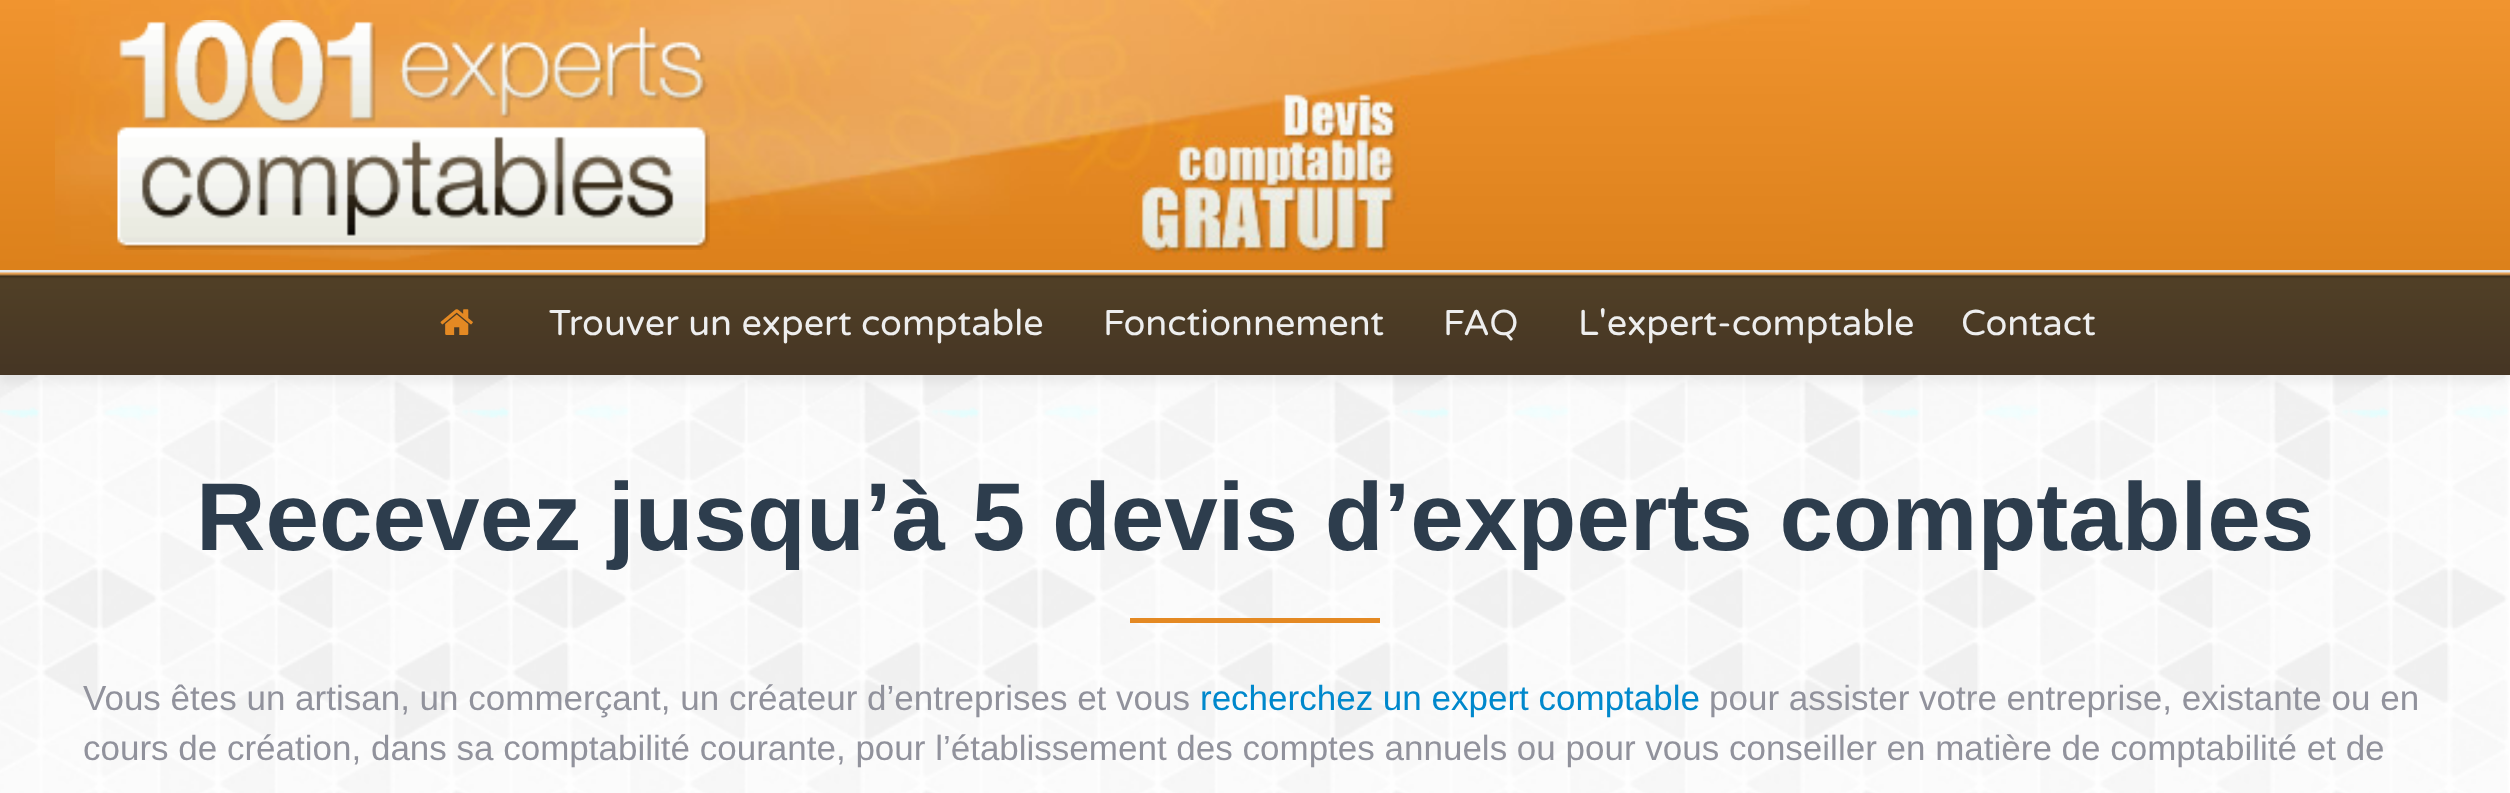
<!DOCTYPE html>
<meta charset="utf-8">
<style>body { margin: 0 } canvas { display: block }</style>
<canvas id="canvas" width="2510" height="793"></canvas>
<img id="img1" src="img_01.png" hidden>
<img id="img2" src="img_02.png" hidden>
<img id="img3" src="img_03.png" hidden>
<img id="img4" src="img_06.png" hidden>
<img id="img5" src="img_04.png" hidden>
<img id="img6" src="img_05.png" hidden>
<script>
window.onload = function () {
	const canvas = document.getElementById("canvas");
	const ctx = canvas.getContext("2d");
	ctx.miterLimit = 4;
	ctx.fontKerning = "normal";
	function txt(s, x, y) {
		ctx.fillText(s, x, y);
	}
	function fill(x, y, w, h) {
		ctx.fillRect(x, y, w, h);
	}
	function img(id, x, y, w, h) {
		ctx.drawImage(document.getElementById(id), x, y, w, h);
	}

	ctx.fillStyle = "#FFFFFF";
	fill(0, 0, 2510, 793);
	img("img1", 0, 0, 2510, 270);
	ctx.fillStyle = "#E6EAED";
	fill(0, 270, 2510, 3);
	img("img2", 55, 0, 1755, 262);
	img("img3", 117, 20, 593, 230);
	img("img4", 0, 375, 2509, 418);
	ctx.fillStyle = "rgba(0, 0, 0, 0.05)";
	ctx.filter = "blur(4px)";
	ctx.beginPath();
	ctx.rect(0, 280, 2510, 103);
	ctx.fill();
	ctx.filter = "none";
	img("img5", 0, 272, 2510, 103);
	img("img6", 440, 309, 33, 26);
	ctx.fillStyle = "#E48923";
	fill(1130, 618, 250, 5);
	ctx.font = "36px Varela Round";
	ctx.fillStyle = "#EEEEEE";
	txt("Trouver un expert comptable", 549, 335);
	txt("Fonctionnement", 1103, 335);
	txt("FAQ", 1443, 335);
	txt("L'expert-comptable", 1578, 335);
	txt("Contact", 1961, 335);
	ctx.font = "bold 96.25px Liberation Sans";
	ctx.fillStyle = "#2D3D4D";
	txt("Recevez jusqu’à 5 devis d’experts comptables", 196, 550);
	ctx.font = "35px Liberation Sans";
	ctx.fillStyle = "#91929C";
	txt("Vous êtes un artisan, un commerçant, un créateur d’entreprises et vous", 83, 710);
	ctx.fillStyle = "#0088CC";
	txt("recherchez un expert comptable", 1200, 710);
	ctx.fillStyle = "#91929C";
	txt("pour assister votre entreprise, existante ou en", 1709, 710);
	txt("cours de création, dans sa comptabilité courante, pour l’établissement des comptes annuels ou pour vous conseiller en matière de comptabilité et de", 83, 760);
};
</script>
